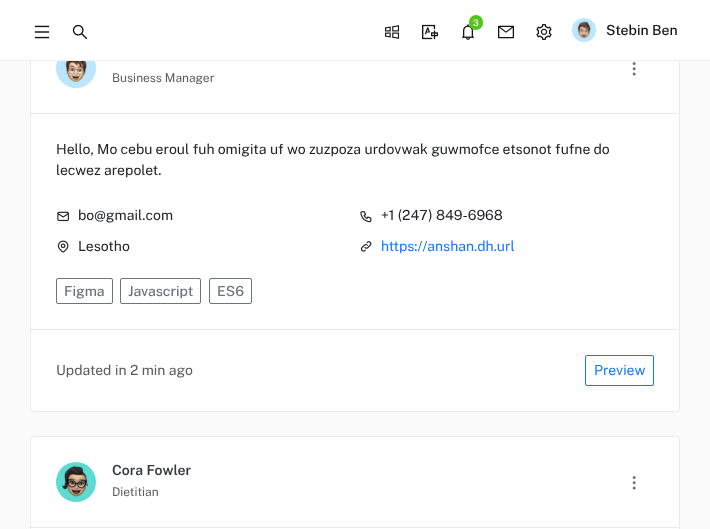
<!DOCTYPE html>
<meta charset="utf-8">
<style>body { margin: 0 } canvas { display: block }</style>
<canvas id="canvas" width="710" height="529"></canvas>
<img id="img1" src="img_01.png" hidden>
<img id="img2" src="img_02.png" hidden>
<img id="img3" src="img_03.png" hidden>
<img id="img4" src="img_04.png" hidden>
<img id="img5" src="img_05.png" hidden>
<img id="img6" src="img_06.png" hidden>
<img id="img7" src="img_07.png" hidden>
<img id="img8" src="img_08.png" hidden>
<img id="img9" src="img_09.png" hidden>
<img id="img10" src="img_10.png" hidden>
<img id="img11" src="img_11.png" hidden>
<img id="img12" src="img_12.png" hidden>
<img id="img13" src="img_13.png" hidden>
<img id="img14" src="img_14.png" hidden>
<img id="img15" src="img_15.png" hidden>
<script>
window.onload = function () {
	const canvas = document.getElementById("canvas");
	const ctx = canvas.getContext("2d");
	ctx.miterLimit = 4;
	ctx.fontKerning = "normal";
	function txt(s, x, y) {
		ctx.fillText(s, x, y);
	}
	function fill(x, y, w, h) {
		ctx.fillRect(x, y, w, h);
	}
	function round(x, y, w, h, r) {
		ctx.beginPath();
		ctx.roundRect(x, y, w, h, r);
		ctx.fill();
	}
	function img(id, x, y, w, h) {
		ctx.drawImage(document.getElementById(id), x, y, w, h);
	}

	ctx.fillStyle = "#FAFAFB";
	fill(0, 0, 710, 529);
	ctx.fillStyle = "#FFFFFF";
	ctx.beginPath();
	ctx.roundRect(30.5, 22.5, 649, 389, 3.5);
	ctx.fill();
	ctx.strokeStyle = "#E6EBF1";
	ctx.stroke();
	ctx.fillStyle = "#F0F0F0";
	fill(0, 60, 710, 1);
	ctx.fillStyle = "#FFFFFF";
	fill(0, 0, 710, 60);
	img("img1", 34, 25, 16, 14);
	img("img2", 72, 24, 16, 16);
	img("img3", 462, 24, 12, 16);
	ctx.fillStyle = "#52C41A";
	round(469, 15, 14, 15, 7);
	img("img4", 385, 25, 15, 14);
	img("img5", 422, 24, 16, 16);
	img("img6", 498, 25, 16, 14);
	img("img7", 536, 24, 16, 16);
	img("img8", 572, 18, 24, 24);
	ctx.fillStyle = "#E6EBF1";
	fill(31, 113, 648, 1);
	img("img9", 56, 61, 40, 27);
	img("img10", 632, 62, 4, 14);
	img("img11", 57, 211, 12, 11);
	img("img12", 360, 211, 12, 12);
	img("img13", 57, 240, 12, 13);
	img("img14", 360, 241, 12, 11);
	ctx.beginPath();
	ctx.roundRect(56.5, 278.5, 56, 25, 1.5);
	ctx.strokeStyle = "#6C757D";
	ctx.stroke();
	ctx.beginPath();
	ctx.roundRect(120.5, 278.5, 80, 25, 1.5);
	ctx.stroke();
	ctx.beginPath();
	ctx.roundRect(209.5, 278.5, 42, 25, 1.5);
	ctx.stroke();
	fill(31, 329, 648, 1);
	ctx.beginPath();
	ctx.roundRect(585.5, 355.5, 68, 30, 1.5);
	ctx.strokeStyle = "#1677FF";
	ctx.stroke();
	ctx.fillStyle = "#FFFFFF";
	ctx.beginPath();
	ctx.roundRect(30.5, 436.5, 649, 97, 3.5);
	ctx.fill();
	ctx.strokeStyle = "#E6EBF1";
	ctx.stroke();
	ctx.fillStyle = "#E6EBF1";
	fill(31, 527, 648, 1);
	img("img15", 56, 462, 40, 40);
	img("img10", 632, 476, 4, 14);
	ctx.font = "500 9px Public Sans";
	ctx.fillStyle = "#FFFFFF";
	txt("3", 473, 26);
	ctx.font = "500 14px Public Sans";
	ctx.fillStyle = "#141414";
	txt("Stebin Ben", 606, 35);
	ctx.font = "12px Public Sans";
	ctx.fillStyle = "#595C5F";
	txt("Business Manager", 112, 82);
	ctx.font = "14px Public Sans";
	ctx.fillStyle = "#212529";
	txt("Hello, Mo cebu eroul fuh omigita uf wo zuzpoza urdovwak guwmofce etsonot fufne do", 56, 154);
	txt("lecwez arepolet.", 56, 175);
	txt("bo@gmail.com", 78, 220);
	txt("+1 (247) 849-6968", 381, 220);
	txt("Lesotho", 78, 251);
	ctx.fillStyle = "#1677FF";
	txt("https://anshan.dh.url", 381, 251);
	ctx.font = "500 14px Public Sans";
	ctx.fillStyle = "#6C757D";
	txt("Figma", 64, 296);
	txt("Javascript", 128, 296);
	txt("ES6", 217, 296);
	ctx.font = "14px Public Sans";
	ctx.fillStyle = "#595C5F";
	txt("Updated in 2 min ago", 56, 375);
	ctx.fillStyle = "#1677FF";
	txt("Preview", 594, 375);
	ctx.font = "600 14px Public Sans";
	ctx.fillStyle = "#343A40";
	txt("Cora Fowler", 112, 475);
	ctx.font = "12px Public Sans";
	ctx.fillStyle = "#595C5F";
	txt("Dietitian", 112, 496);
};
</script>
